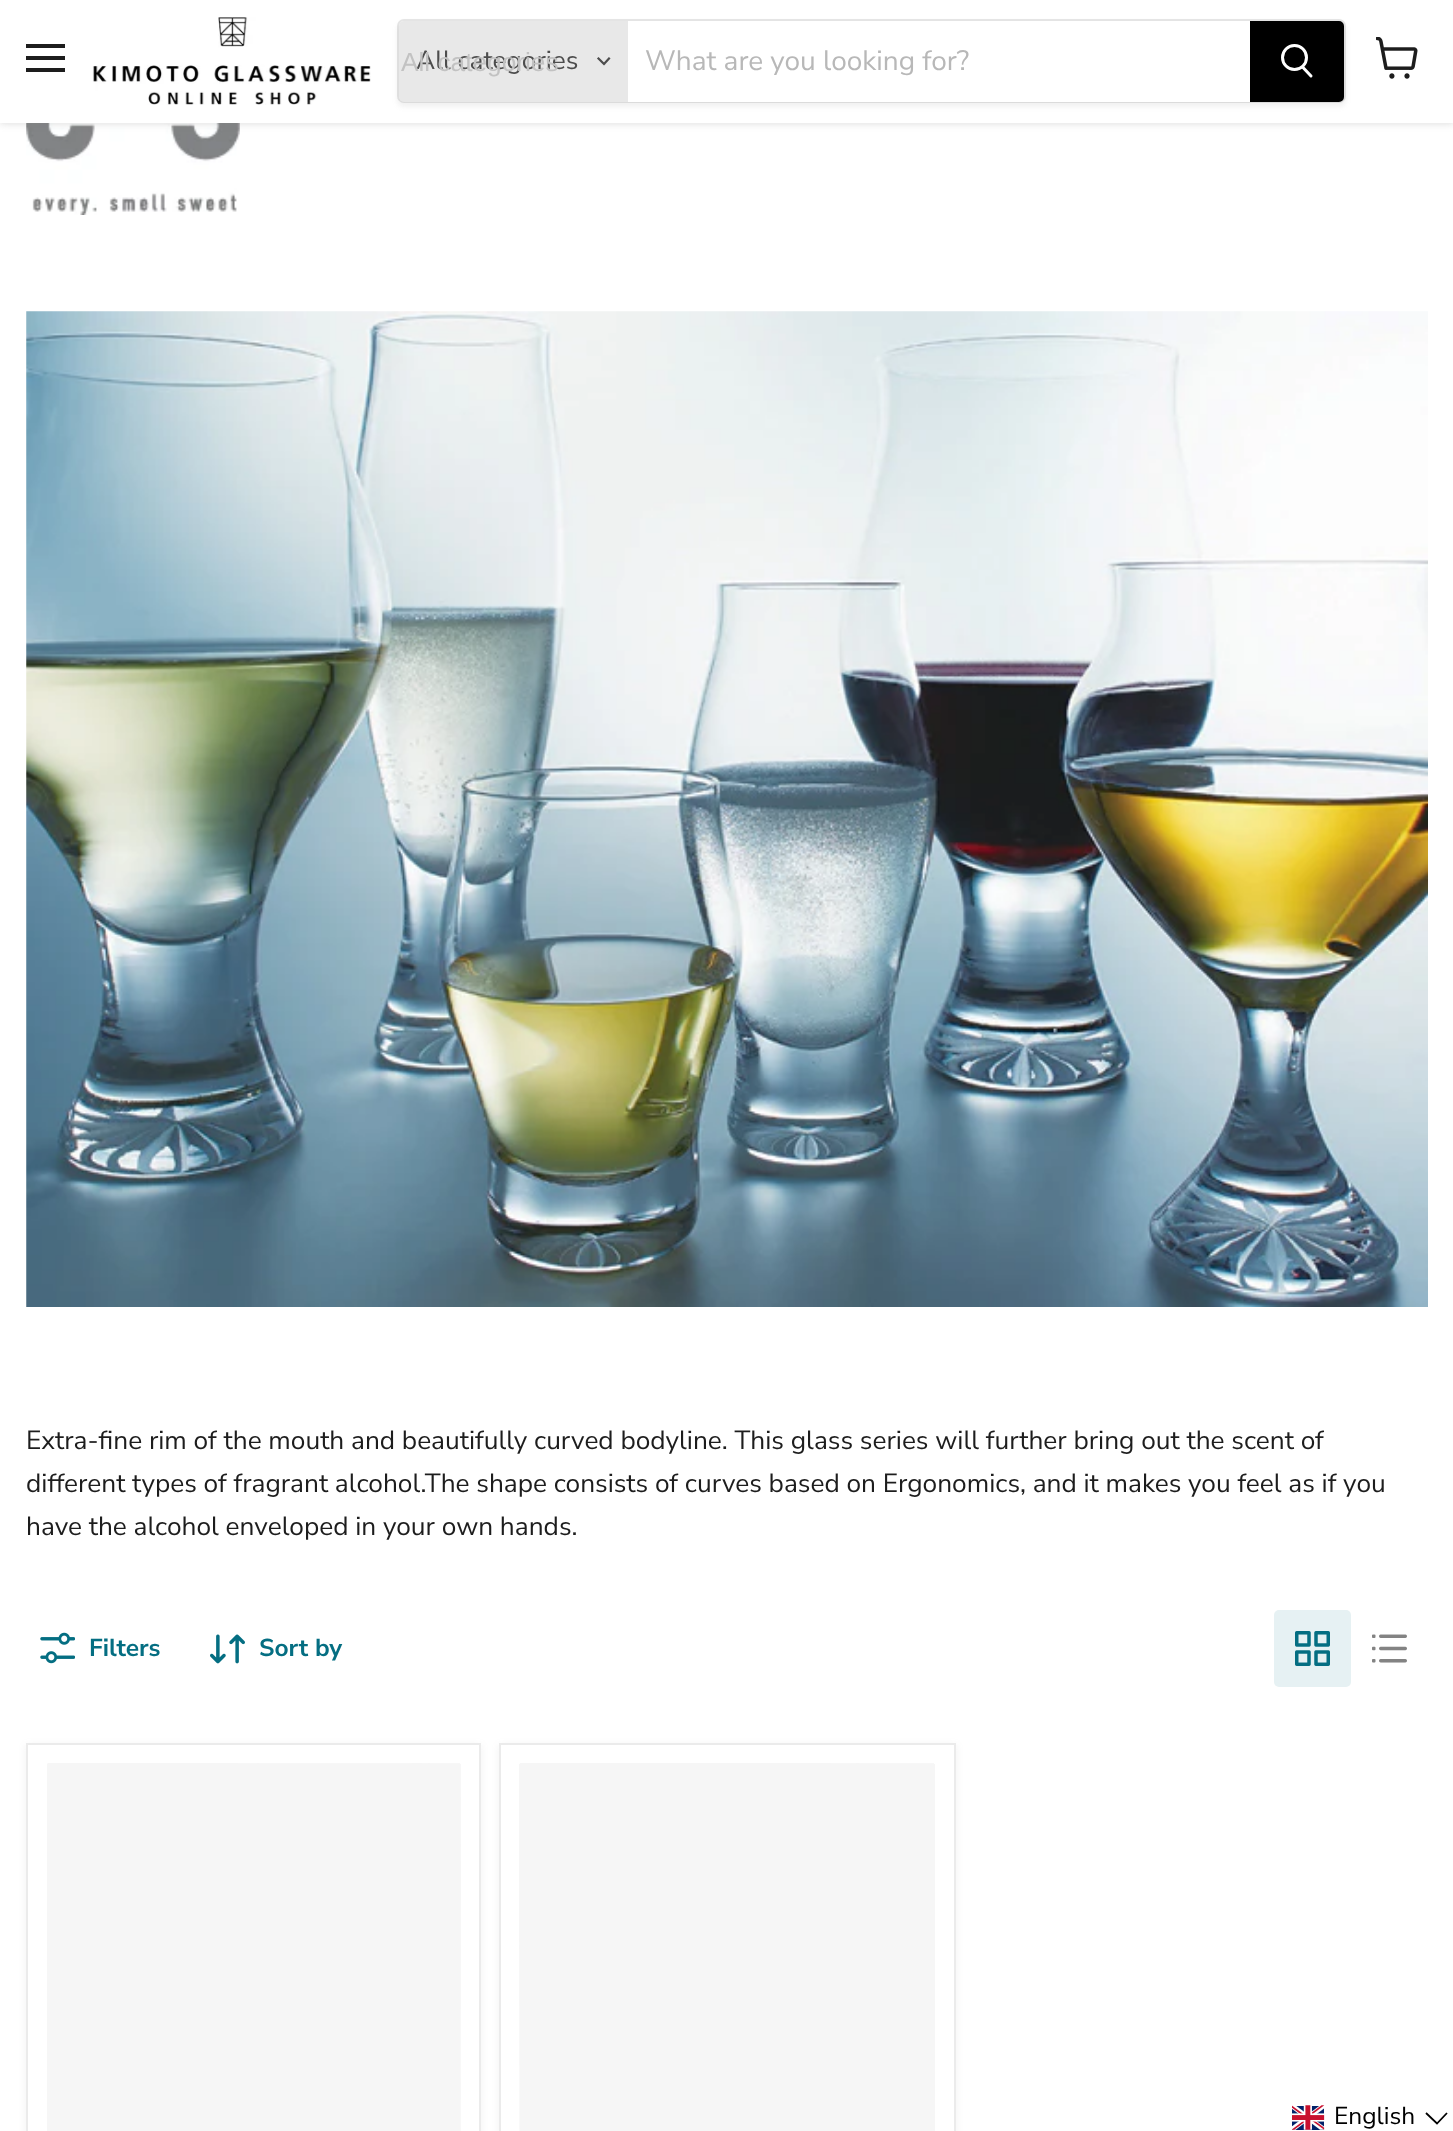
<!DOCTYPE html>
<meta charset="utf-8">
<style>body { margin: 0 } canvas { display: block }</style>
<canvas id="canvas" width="1453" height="2131"></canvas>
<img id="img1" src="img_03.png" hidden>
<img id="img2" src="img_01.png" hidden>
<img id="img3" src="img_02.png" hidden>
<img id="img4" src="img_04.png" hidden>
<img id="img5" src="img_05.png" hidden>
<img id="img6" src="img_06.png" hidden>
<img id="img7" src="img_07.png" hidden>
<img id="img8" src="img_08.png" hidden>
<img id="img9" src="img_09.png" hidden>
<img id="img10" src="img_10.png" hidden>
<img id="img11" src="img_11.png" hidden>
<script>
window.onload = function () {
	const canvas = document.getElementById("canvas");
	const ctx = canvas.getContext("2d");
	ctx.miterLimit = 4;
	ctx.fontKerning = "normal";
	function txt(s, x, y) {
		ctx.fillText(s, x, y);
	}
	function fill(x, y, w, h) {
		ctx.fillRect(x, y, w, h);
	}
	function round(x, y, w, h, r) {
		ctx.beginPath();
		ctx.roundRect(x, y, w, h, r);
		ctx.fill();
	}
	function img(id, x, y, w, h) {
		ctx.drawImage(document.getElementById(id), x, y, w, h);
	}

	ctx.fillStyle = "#FFFFFF";
	fill(0, 0, 1453, 2131);
	img("img1", 26, 123, 214, 92);
	ctx.fillStyle = "rgba(128, 128, 128, 0.25)";
	ctx.filter = "blur(3.5px)";
	ctx.beginPath();
	ctx.rect(0, 2, 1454, 122);
	ctx.fill();
	ctx.filter = "none";
	ctx.fillStyle = "#FFFFFF";
	fill(0, 0, 1453, 123);
	ctx.fillStyle = "#1D1D1D";
	fill(26, 44, 39, 4);
	fill(26, 56, 39, 4);
	fill(26, 68, 39, 4);
	img("img2", 92, 17, 279, 88);
	ctx.fillStyle = "rgba(128, 128, 128, 0.11)";
	ctx.filter = "blur(2.5px)";
	ctx.beginPath();
	ctx.roundRect(397, 23, 949, 84, 7);
	ctx.fill();
	ctx.filter = "none";
	ctx.beginPath();
	ctx.roundRect(398, 20, 947, 82, 6);
	ctx.strokeStyle = "rgba(128, 128, 128, 0.2)";
	ctx.lineWidth = 2;
	ctx.stroke();
	ctx.fillStyle = "#E8E8E8";
	ctx.beginPath();
	ctx.roundRect(399, 21, 229, 81, [5, 0, 0, 5]);
	ctx.fill();
	ctx.beginPath();
	ctx.moveTo(604, 64);
	ctx.lineTo(609, 58.5);
	ctx.moveTo(604, 64);
	ctx.lineTo(598.5, 58.5);
	ctx.strokeStyle = "#4D4D4D";
	ctx.lineWidth = 2.2;
	ctx.lineCap = "square";
	ctx.stroke();
	ctx.fillStyle = "#FFFFFF";
	fill(628, 21, 622, 81);
	ctx.fillStyle = "#000000";
	ctx.beginPath();
	ctx.roundRect(1251, 22, 92, 79, [0, 4, 4, 0]);
	ctx.fill();
	ctx.strokeStyle = "#000000";
	ctx.lineWidth = 2;
	ctx.stroke();
	ctx.beginPath();
	ctx.moveTo(1311, 76);
	ctx.lineTo(1303, 67.5);
	ctx.strokeStyle = "#FFFFFF";
	ctx.lineWidth = 3;
	ctx.lineCap = "round";
	ctx.stroke();
	ctx.beginPath();
	ctx.arc(1294.5, 57.5, 12, 0, Math.PI * 2);
	ctx.stroke();
	img("img3", 1376, 37, 42, 42);
	img("img4", 26, 311, 1402, 996);
	img("img5", 40, 1632, 35, 32);
	img("img6", 210, 1634, 35, 30);
	ctx.fillStyle = "#E6F1F3";
	round(1274, 1610, 77, 77, 5);
	img("img7", 1295, 1631, 35, 35);
	img("img8", 1372, 1634, 35, 29);
	ctx.fillStyle = "rgba(128, 128, 128, 0.11)";
	ctx.filter = "blur(3.5px)";
	ctx.beginPath();
	ctx.rect(26, 1745, 455, 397);
	ctx.fill();
	ctx.filter = "none";
	ctx.fillStyle = "#FFFFFF";
	ctx.beginPath();
	ctx.rect(27, 1744, 453, 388);
	ctx.fill();
	ctx.strokeStyle = "#EBEBEB";
	ctx.lineWidth = 2;
	ctx.stroke();
	img("img9", 47, 1763, 414, 368);
	ctx.fillStyle = "#F6F6F6";
	fill(47, 1764, 413, 367);
	ctx.fillStyle = "rgba(128, 128, 128, 0.11)";
	ctx.filter = "blur(3.5px)";
	ctx.beginPath();
	ctx.rect(499, 1745, 457, 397);
	ctx.fill();
	ctx.filter = "none";
	ctx.fillStyle = "#FFFFFF";
	ctx.beginPath();
	ctx.rect(500, 1744, 455, 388);
	ctx.fill();
	ctx.stroke();
	img("img10", 519, 1763, 415, 368);
	ctx.fillStyle = "#F6F6F6";
	fill(520, 1764, 415, 367);
	img("img11", 1292, 2105, 33, 25);
	ctx.beginPath();
	ctx.moveTo(1426, 2113);
	ctx.lineTo(1437, 2123.5);
	ctx.lineTo(1447, 2113);
	ctx.strokeStyle = "#000000";
	ctx.lineWidth = 1.8;
	ctx.lineCap = "butt";
	ctx.stroke();
	ctx.font = "26.25px Nunito Sans";
	ctx.fillStyle = "#4D4D4D";
	txt("All categories", 416, 69);
	ctx.font = "26.25px Liberation Sans";
	ctx.fillStyle = "#C2C2C2";
	txt("All categories", 401, 71);
	ctx.font = "28px Nunito Sans";
	ctx.fillStyle = "#B8B8B8";
	txt("What are you looking for?", 645, 70);
	ctx.font = "26.25px Nunito Sans";
	ctx.fillStyle = "#1D1D1D";
	txt("Extra-fine rim of the mouth and beautifully curved bodyline. This glass series will further bring out the scent of", 26, 1449);
	txt("different types of fragrant alcohol.The shape consists of curves based on Ergonomics, and it makes you feel as if you", 26, 1492);
	txt("have the alcohol enveloped in your own hands.", 26, 1535);
	ctx.font = "bold 24.5px Nunito Sans";
	ctx.fillStyle = "#046E82";
	txt("Filters", 89, 1656);
	txt("Sort by", 259, 1656);
	ctx.font = "24.5px Nunito Sans";
	ctx.fillStyle = "#000000";
	txt("English", 1334, 2124);
};
</script>
